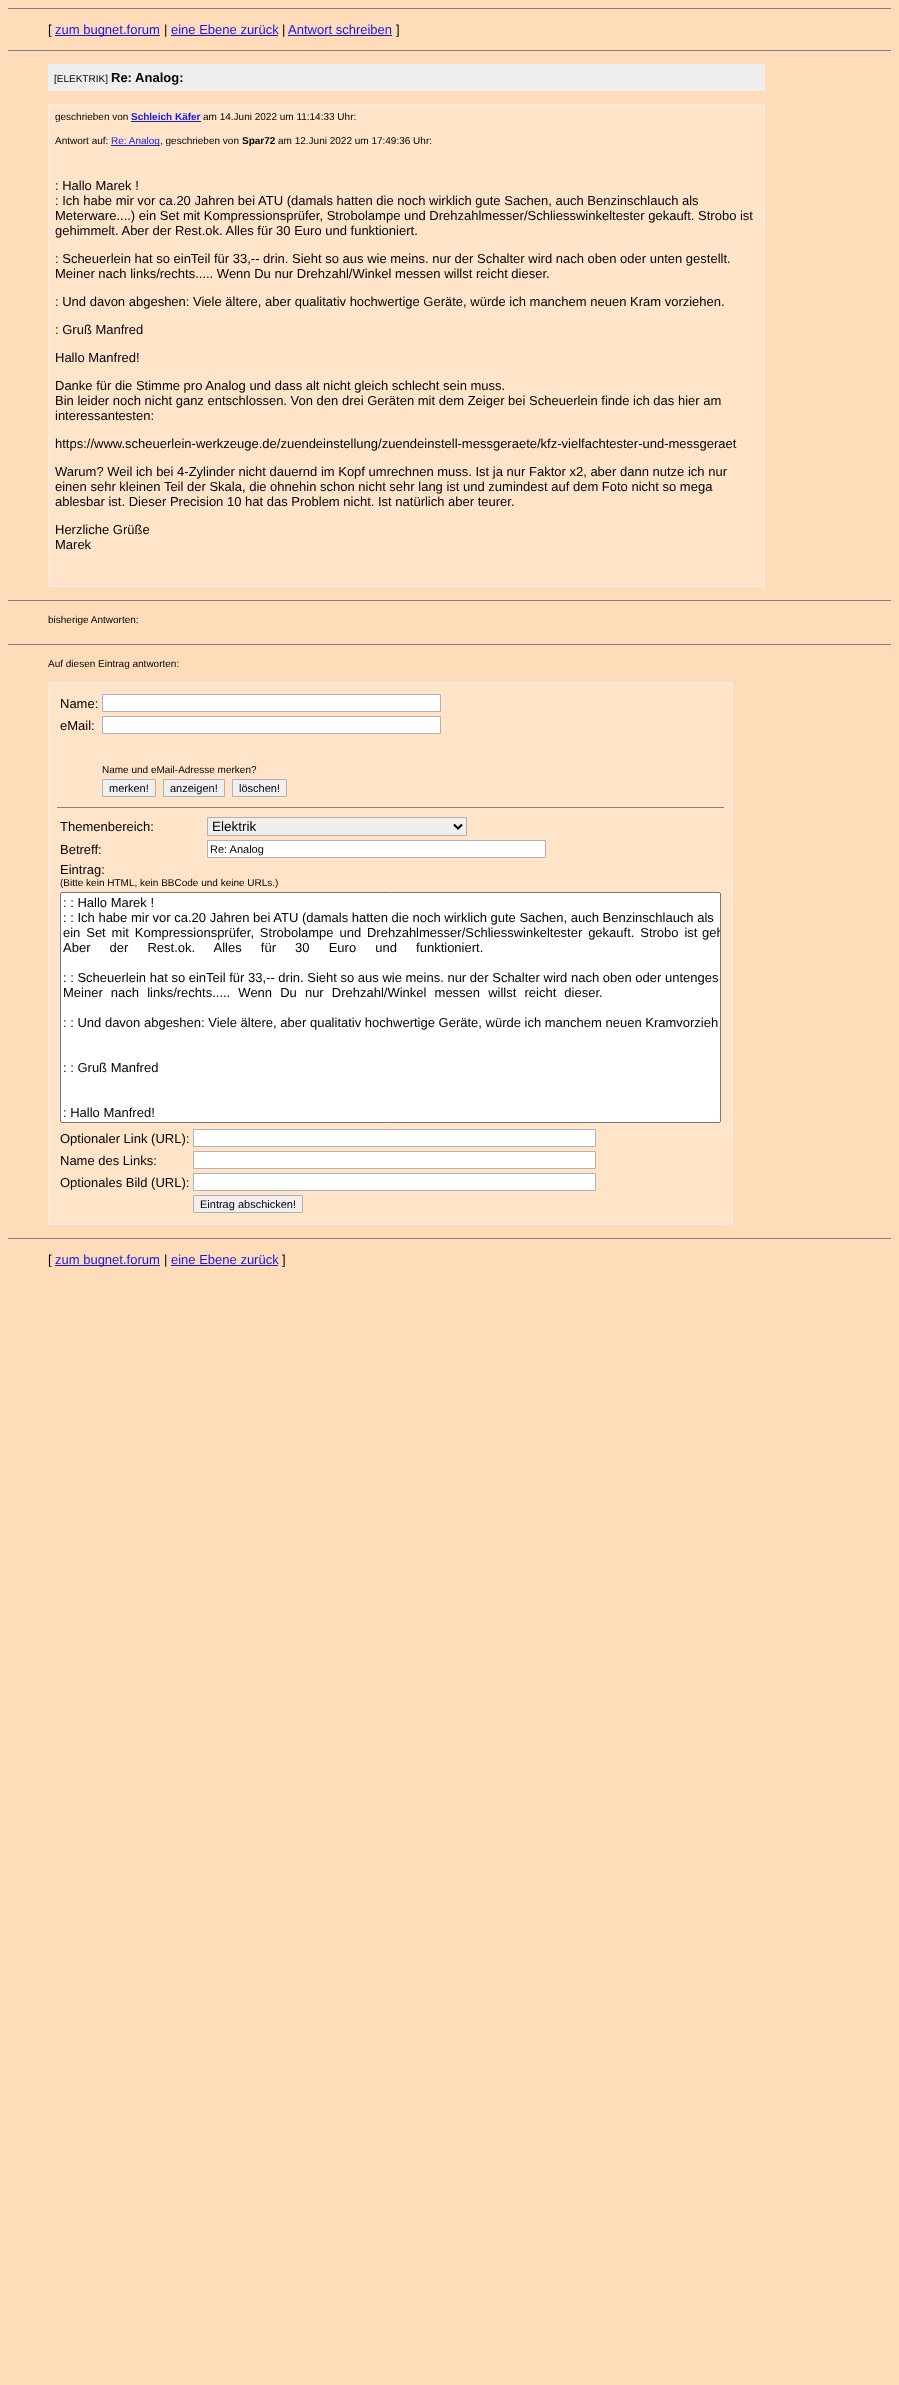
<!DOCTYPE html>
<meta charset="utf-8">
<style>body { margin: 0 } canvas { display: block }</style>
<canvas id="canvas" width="899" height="2385"></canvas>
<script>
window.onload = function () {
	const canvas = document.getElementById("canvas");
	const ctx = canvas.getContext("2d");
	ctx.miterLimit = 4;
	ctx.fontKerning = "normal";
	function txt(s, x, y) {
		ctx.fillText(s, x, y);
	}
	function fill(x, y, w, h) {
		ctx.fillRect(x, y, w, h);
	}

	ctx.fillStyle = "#FFDCB9";
	fill(0, 0, 899, 2385);
	ctx.fillStyle = "#808080";
	fill(8, 8, 883, 1);
	ctx.fillStyle = "#1715E8";
	fill(55, 35, 105, 1);
	fill(171, 35, 107, 1);
	fill(288, 35, 104, 1);
	ctx.fillStyle = "#808080";
	fill(8, 50, 883, 1);
	ctx.fillStyle = "#EEEEEE";
	fill(48, 64, 717, 27);
	fill(48, 104, 717, 483);
	ctx.fillStyle = "#FFE4CA";
	fill(49, 105, 715, 481);
	ctx.fillStyle = "#1715E8";
	fill(131, 121, 70, 1);
	fill(111, 145, 49, 1);
	ctx.fillStyle = "#808080";
	fill(8, 600, 883, 1);
	fill(8, 644, 883, 1);
	ctx.fillStyle = "#EEEEEE";
	fill(48, 682, 685, 543);
	ctx.fillStyle = "#FFE4CA";
	fill(49, 683, 683, 541);
	ctx.fillStyle = "#FFFFFF";
	ctx.beginPath();
	ctx.rect(102.5, 694.5, 338, 17);
	ctx.fill();
	ctx.strokeStyle = "#B1B1B1";
	ctx.stroke();
	ctx.beginPath();
	ctx.rect(102.5, 716.5, 338, 17);
	ctx.fill();
	ctx.stroke();
	ctx.fillStyle = "#EFEFEF";
	ctx.beginPath();
	ctx.rect(102.5, 779.5, 53, 17);
	ctx.fill();
	ctx.stroke();
	ctx.beginPath();
	ctx.rect(163.5, 779.5, 61, 17);
	ctx.fill();
	ctx.stroke();
	ctx.beginPath();
	ctx.rect(232.5, 779.5, 54, 17);
	ctx.fill();
	ctx.stroke();
	ctx.fillStyle = "#808080";
	fill(57, 807, 667, 1);
	ctx.fillStyle = "#EFEFEF";
	ctx.beginPath();
	ctx.rect(207.5, 817.5, 259, 18);
	ctx.fill();
	ctx.stroke();
	ctx.beginPath();
	ctx.moveTo(454, 824.5);
	ctx.lineTo(458, 828.5);
	ctx.lineTo(462, 824.5);
	ctx.strokeStyle = "#000000";
	ctx.lineWidth = 2;
	ctx.stroke();
	ctx.fillStyle = "#FFFFFF";
	ctx.beginPath();
	ctx.rect(207.5, 840.5, 338, 17);
	ctx.fill();
	ctx.strokeStyle = "#B1B1B1";
	ctx.lineWidth = 1;
	ctx.stroke();
	ctx.beginPath();
	ctx.roundRect(60.5, 892.5, 660, 230, 1.5);
	ctx.fill();
	ctx.strokeStyle = "#767676";
	ctx.stroke();
	ctx.beginPath();
	ctx.rect(193.5, 1129.5, 402, 17);
	ctx.fill();
	ctx.strokeStyle = "#B1B1B1";
	ctx.stroke();
	ctx.beginPath();
	ctx.rect(193.5, 1151.5, 402, 17);
	ctx.fill();
	ctx.stroke();
	ctx.beginPath();
	ctx.rect(193.5, 1173.5, 402, 17);
	ctx.fill();
	ctx.stroke();
	ctx.fillStyle = "#EFEFEF";
	ctx.beginPath();
	ctx.rect(193.5, 1195.5, 109, 17);
	ctx.fill();
	ctx.stroke();
	ctx.fillStyle = "#808080";
	fill(8, 1238, 883, 1);
	ctx.fillStyle = "#1715E8";
	fill(55, 1265, 105, 1);
	fill(171, 1265, 107, 1);
	ctx.font = "13px Liberation Sans";
	ctx.fillStyle = "#000000";
	txt("[", 48, 34);
	ctx.fillStyle = "#1715E8";
	txt("zum bugnet.forum", 55, 34);
	ctx.fillStyle = "#000000";
	txt("|", 164, 34);
	ctx.fillStyle = "#1715E8";
	txt("eine Ebene zurück", 171, 34);
	ctx.fillStyle = "#000000";
	txt("|", 282, 34);
	ctx.fillStyle = "#1715E8";
	txt("Antwort schreiben", 288, 34);
	ctx.fillStyle = "#000000";
	txt("]", 396, 34);
	ctx.font = "10px Liberation Sans";
	txt("[ELEKTRIK]", 54, 82);
	ctx.font = "bold 13px Liberation Sans";
	txt("Re: Analog:", 111, 82);
	ctx.font = "10px Liberation Sans";
	txt("geschrieben von", 55, 120);
	ctx.font = "bold 10px Liberation Sans";
	ctx.fillStyle = "#1715E8";
	txt("Schleich Käfer", 131, 120);
	ctx.font = "10px Liberation Sans";
	ctx.fillStyle = "#000000";
	txt("am 14.Juni 2022 um 11:14:33 Uhr:", 203, 120);
	txt("Antwort auf:", 55, 144);
	ctx.fillStyle = "#1715E8";
	txt("Re: Analog", 111, 144);
	ctx.fillStyle = "#000000";
	txt(", geschrieben von", 160, 144);
	ctx.font = "bold 10px Liberation Sans";
	txt("Spar72", 242, 144);
	ctx.font = "10px Liberation Sans";
	txt("am 12.Juni 2022 um 17:49:36 Uhr:", 278, 144);
	ctx.font = "13px Liberation Sans";
	txt(": Hallo Marek !", 55, 190);
	txt(": Ich habe mir vor ca.20 Jahren bei ATU (damals hatten die noch wirklich gute Sachen, auch Benzinschlauch als", 55, 205);
	txt("Meterware....) ein Set mit Kompressionsprüfer, Strobolampe und Drehzahlmesser/Schliesswinkeltester gekauft. Strobo ist", 55, 220);
	txt("gehimmelt. Aber der Rest.ok. Alles für 30 Euro und funktioniert.", 55, 235);
	txt(": Scheuerlein hat so einTeil für 33,-- drin. Sieht so aus wie meins. nur der Schalter wird nach oben oder unten gestellt.", 55, 263);
	txt("Meiner nach links/rechts..... Wenn Du nur Drehzahl/Winkel messen willst reicht dieser.", 55, 278);
	txt(": Und davon abgeshen: Viele ältere, aber qualitativ hochwertige Geräte, würde ich manchem neuen Kram vorziehen.", 55, 306);
	txt(": Gruß Manfred", 55, 334);
	txt("Hallo Manfred!", 55, 362);
	txt("Danke für die Stimme pro Analog und dass alt nicht gleich schlecht sein muss.", 55, 390);
	txt("Bin leider noch nicht ganz entschlossen. Von den drei Geräten mit dem Zeiger bei Scheuerlein finde ich das hier am", 55, 405);
	txt("interessantesten:", 55, 420);
	txt("https://www.scheuerlein-werkzeuge.de/zuendeinstellung/zuendeinstell-messgeraete/kfz-vielfachtester-und-messgeraet", 55, 448);
	txt("Warum? Weil ich bei 4-Zylinder nicht dauernd im Kopf umrechnen muss. Ist ja nur Faktor x2, aber dann nutze ich nur", 55, 476);
	txt("einen sehr kleinen Teil der Skala, die ohnehin schon nicht sehr lang ist und zumindest auf dem Foto nicht so mega", 55, 491);
	txt("ablesbar ist. Dieser Precision 10 hat das Problem nicht. Ist natürlich aber teurer.", 55, 506);
	txt("Herzliche Grüße", 55, 534);
	txt("Marek", 55, 549);
	ctx.font = "10px Liberation Sans";
	txt("bisherige Antworten:", 48, 623);
	txt("Auf diesen Eintrag antworten:", 48, 667);
	ctx.font = "13px Liberation Sans";
	txt("Name:", 60, 708);
	txt("eMail:", 60, 730);
	ctx.font = "10px Liberation Sans";
	txt("Name und eMail-Adresse merken?", 102, 773);
	ctx.font = "11px Liberation Sans";
	txt("merken!", 109, 792);
	txt("anzeigen!", 170, 792);
	txt("löschen!", 239, 792);
	ctx.font = "13px Liberation Sans";
	txt("Themenbereich:", 60, 831);
	ctx.font = "13.5px Liberation Sans";
	txt("Elektrik", 212, 831);
	ctx.font = "13px Liberation Sans";
	txt("Betreff:", 60, 854);
	ctx.font = "11px Liberation Sans";
	txt("Re: Analog", 210, 853);
	ctx.font = "13px Liberation Sans";
	txt("Eintrag:", 60, 874);
	ctx.font = "10px Liberation Sans";
	txt("(Bitte kein HTML, kein BBCode und keine URLs.)", 60, 886);
	ctx.font = "13px Liberation Sans";
	txt(": : Hallo Marek !", 63, 907);
	txt(": : Ich habe mir vor ca.20 Jahren bei ATU (damals hatten die noch wirklich gute Sachen, auch Benzinschlauch als", 63, 922);
	ctx.wordSpacing = "2.25px";
	txt("ein Set mit Kompressionsprüfer, Strobolampe und Drehzahlmesser/Schliesswinkeltester gekauft. Strobo ist", 63, 937);
	ctx.save();
	ctx.beginPath();
	ctx.rect(61, 893, 659, 229);
	ctx.clip();
	ctx.wordSpacing = "0px";
	txt("geh", 702, 937);
	ctx.restore();
	ctx.wordSpacing = "15.5px";
	txt("Aber der Rest.ok. Alles für 30 Euro und funktioniert.", 63, 952);
	ctx.wordSpacing = "0px";
	txt(": : Scheuerlein hat so einTeil für 33,-- drin. Sieht so aus wie meins. nur der Schalter wird nach oben oder untenges", 63, 982);
	ctx.wordSpacing = "4.5px";
	txt("Meiner nach links/rechts..... Wenn Du nur Drehzahl/Winkel messen willst reicht dieser.", 63, 997);
	ctx.wordSpacing = "0px";
	txt(": : Und davon abgeshen: Viele ältere, aber qualitativ hochwertige Geräte, würde ich manchem neuen Kramvorzieh", 63, 1027);
	txt(": : Gruß Manfred", 63, 1072);
	txt(": Hallo Manfred!", 63, 1117);
	txt("Optionaler Link (URL):", 60, 1143);
	txt("Name des Links:", 60, 1165);
	txt("Optionales Bild (URL):", 60, 1187);
	ctx.font = "11px Liberation Sans";
	txt("Eintrag abschicken!", 200, 1208);
	ctx.font = "13px Liberation Sans";
	txt("[", 48, 1264);
	ctx.fillStyle = "#1715E8";
	txt("zum bugnet.forum", 55, 1264);
	ctx.fillStyle = "#000000";
	txt("|", 164, 1264);
	ctx.fillStyle = "#1715E8";
	txt("eine Ebene zurück", 171, 1264);
	ctx.fillStyle = "#000000";
	txt("]", 282, 1264);
};
</script>
